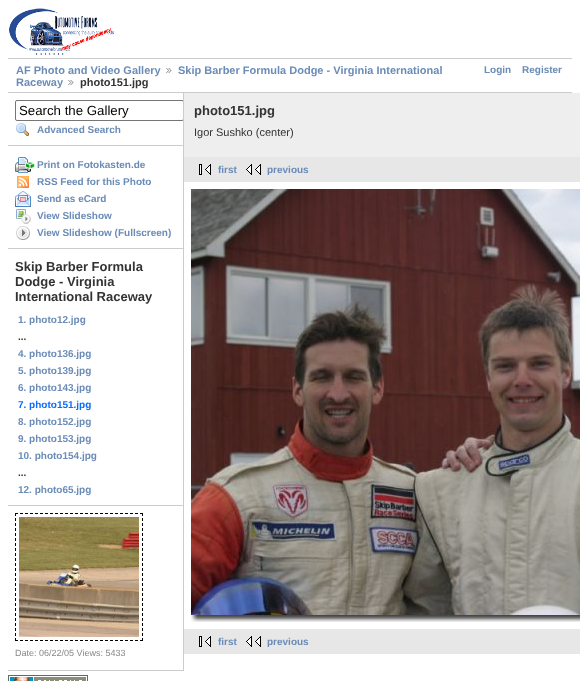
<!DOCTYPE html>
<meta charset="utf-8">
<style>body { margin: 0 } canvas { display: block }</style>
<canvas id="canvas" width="580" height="681"></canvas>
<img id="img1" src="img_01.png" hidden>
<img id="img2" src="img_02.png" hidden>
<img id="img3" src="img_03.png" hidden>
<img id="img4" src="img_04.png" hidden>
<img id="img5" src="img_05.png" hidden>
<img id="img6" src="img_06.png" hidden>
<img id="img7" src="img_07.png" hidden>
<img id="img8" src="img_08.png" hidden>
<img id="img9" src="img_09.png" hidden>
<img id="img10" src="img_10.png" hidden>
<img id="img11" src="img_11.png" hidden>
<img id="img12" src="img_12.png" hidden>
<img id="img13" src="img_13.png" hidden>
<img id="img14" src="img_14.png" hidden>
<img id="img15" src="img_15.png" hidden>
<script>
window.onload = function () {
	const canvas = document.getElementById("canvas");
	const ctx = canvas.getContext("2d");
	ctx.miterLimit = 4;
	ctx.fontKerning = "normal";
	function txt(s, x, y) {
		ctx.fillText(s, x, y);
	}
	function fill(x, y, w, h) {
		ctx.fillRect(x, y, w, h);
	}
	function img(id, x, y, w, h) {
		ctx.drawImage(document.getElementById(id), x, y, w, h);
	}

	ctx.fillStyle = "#FFFFFF";
	fill(0, 0, 580, 681);
	img("img1", 9, 8, 105, 47);
	ctx.fillStyle = "#CCCCCC";
	fill(8, 58, 564, 1);
	fill(8, 92, 564, 1);
	img("img2", 166, 68, 6, 5);
	img("img2", 68, 80, 6, 5);
	fill(183, 93, 1, 578);
	fill(8, 145, 175, 1);
	ctx.save();
	ctx.beginPath();
	ctx.rect(8, 93, 175, 578);
	ctx.clip();
	ctx.beginPath();
	ctx.roundRect(15.5, 100.5, 168, 20, 1.5);
	ctx.strokeStyle = "#767676";
	ctx.stroke();
	ctx.restore();
	img("img3", 16, 123, 13, 14);
	fill(8, 248, 175, 1);
	img("img4", 15, 157, 20, 16);
	img("img5", 17, 176, 12, 12);
	img("img6", 15, 191, 16, 16);
	img("img7", 16, 209, 15, 15);
	img("img8", 16, 226, 14, 14);
	fill(8, 505, 175, 1);
	fill(8, 670, 175, 1);
	ctx.beginPath();
	ctx.moveTo(15, 513.5);
	ctx.lineTo(143, 513.5);
	ctx.strokeStyle = "#000000";
	ctx.setLineDash([3, 2]);
	ctx.stroke();
	ctx.beginPath();
	ctx.moveTo(142.5, 513);
	ctx.lineTo(142.5, 641);
	ctx.stroke();
	ctx.beginPath();
	ctx.moveTo(15, 640.5);
	ctx.lineTo(143, 640.5);
	ctx.stroke();
	ctx.beginPath();
	ctx.moveTo(15.5, 513);
	ctx.lineTo(15.5, 641);
	ctx.stroke();
	img("img9", 19, 517, 120, 120);
	ctx.fillStyle = "#EEEEEE";
	fill(184, 93, 396, 64);
	ctx.fillStyle = "#E7E7E7";
	fill(184, 157, 396, 25);
	img("img10", 199, 164, 12, 11);
	img("img11", 246, 164, 15, 11);
	img("img12", 191, 189, 389, 426);
	img("img13", 191, 615, 9, 7);
	img("img14", 200, 615, 380, 7);
	fill(184, 629, 396, 25);
	img("img10", 199, 636, 12, 11);
	img("img11", 246, 636, 15, 11);
	img("img15", 8, 675, 80, 6);
	ctx.font = "bold 11px Liberation Sans";
	ctx.fillStyle = "#6B8CB7";
	txt("AF Photo and Video Gallery", 16, 74);
	txt("Skip Barber Formula Dodge - Virginia International", 178, 74);
	txt("Raceway", 16, 86);
	ctx.fillStyle = "#333333";
	txt("photo151.jpg", 80, 86);
	ctx.font = "bold 10px Liberation Sans";
	ctx.fillStyle = "#6B8CB7";
	txt("Login", 484, 73);
	txt("Register", 522, 73);
	ctx.font = "13.25px Liberation Sans";
	ctx.fillStyle = "#000000";
	txt("Search the Gallery", 19, 115);
	ctx.font = "bold 10px Liberation Sans";
	ctx.fillStyle = "#6B8CB7";
	txt("Advanced Search", 37, 133);
	txt("Print on Fotokasten.de", 37, 168);
	txt("RSS Feed for this Photo", 37, 185);
	txt("Send as eCard", 37, 202);
	txt("View Slideshow", 37, 219);
	txt("View Slideshow (Fullscreen)", 37, 236);
	ctx.font = "bold 13px Liberation Sans";
	ctx.fillStyle = "#333333";
	txt("Skip Barber Formula", 15, 271);
	txt("Dodge - Virginia", 15, 286);
	txt("International Raceway", 15, 301);
	ctx.font = "bold 10px Liberation Sans";
	ctx.fillStyle = "#6B8CB7";
	txt("1. photo12.jpg", 18, 323);
	ctx.fillStyle = "#333333";
	txt("...", 18, 340);
	ctx.fillStyle = "#6B8CB7";
	txt("4. photo136.jpg", 18, 357);
	txt("5. photo139.jpg", 18, 374);
	txt("6. photo143.jpg", 18, 391);
	ctx.fillStyle = "#0B6CFF";
	txt("7. photo151.jpg", 18, 408);
	ctx.fillStyle = "#6B8CB7";
	txt("8. photo152.jpg", 18, 425);
	txt("9. photo153.jpg", 18, 442);
	txt("10. photo154.jpg", 18, 459);
	ctx.fillStyle = "#333333";
	txt("...", 18, 476);
	ctx.fillStyle = "#6B8CB7";
	txt("12. photo65.jpg", 18, 493);
	ctx.font = "9px Liberation Sans";
	ctx.fillStyle = "#888888";
	txt("Date: 06/22/05 Views: 5433", 15, 656);
	ctx.font = "bold 13px Liberation Sans";
	ctx.fillStyle = "#333333";
	txt("photo151.jpg", 194, 115);
	ctx.font = "11px Liberation Sans";
	txt("Igor Sushko (center)", 194, 136);
	ctx.font = "bold 10px Liberation Sans";
	ctx.fillStyle = "#6B8CB7";
	txt("first", 218, 173);
	txt("previous", 267, 173);
	txt("first", 218, 645);
	txt("previous", 267, 645);
};
</script>
